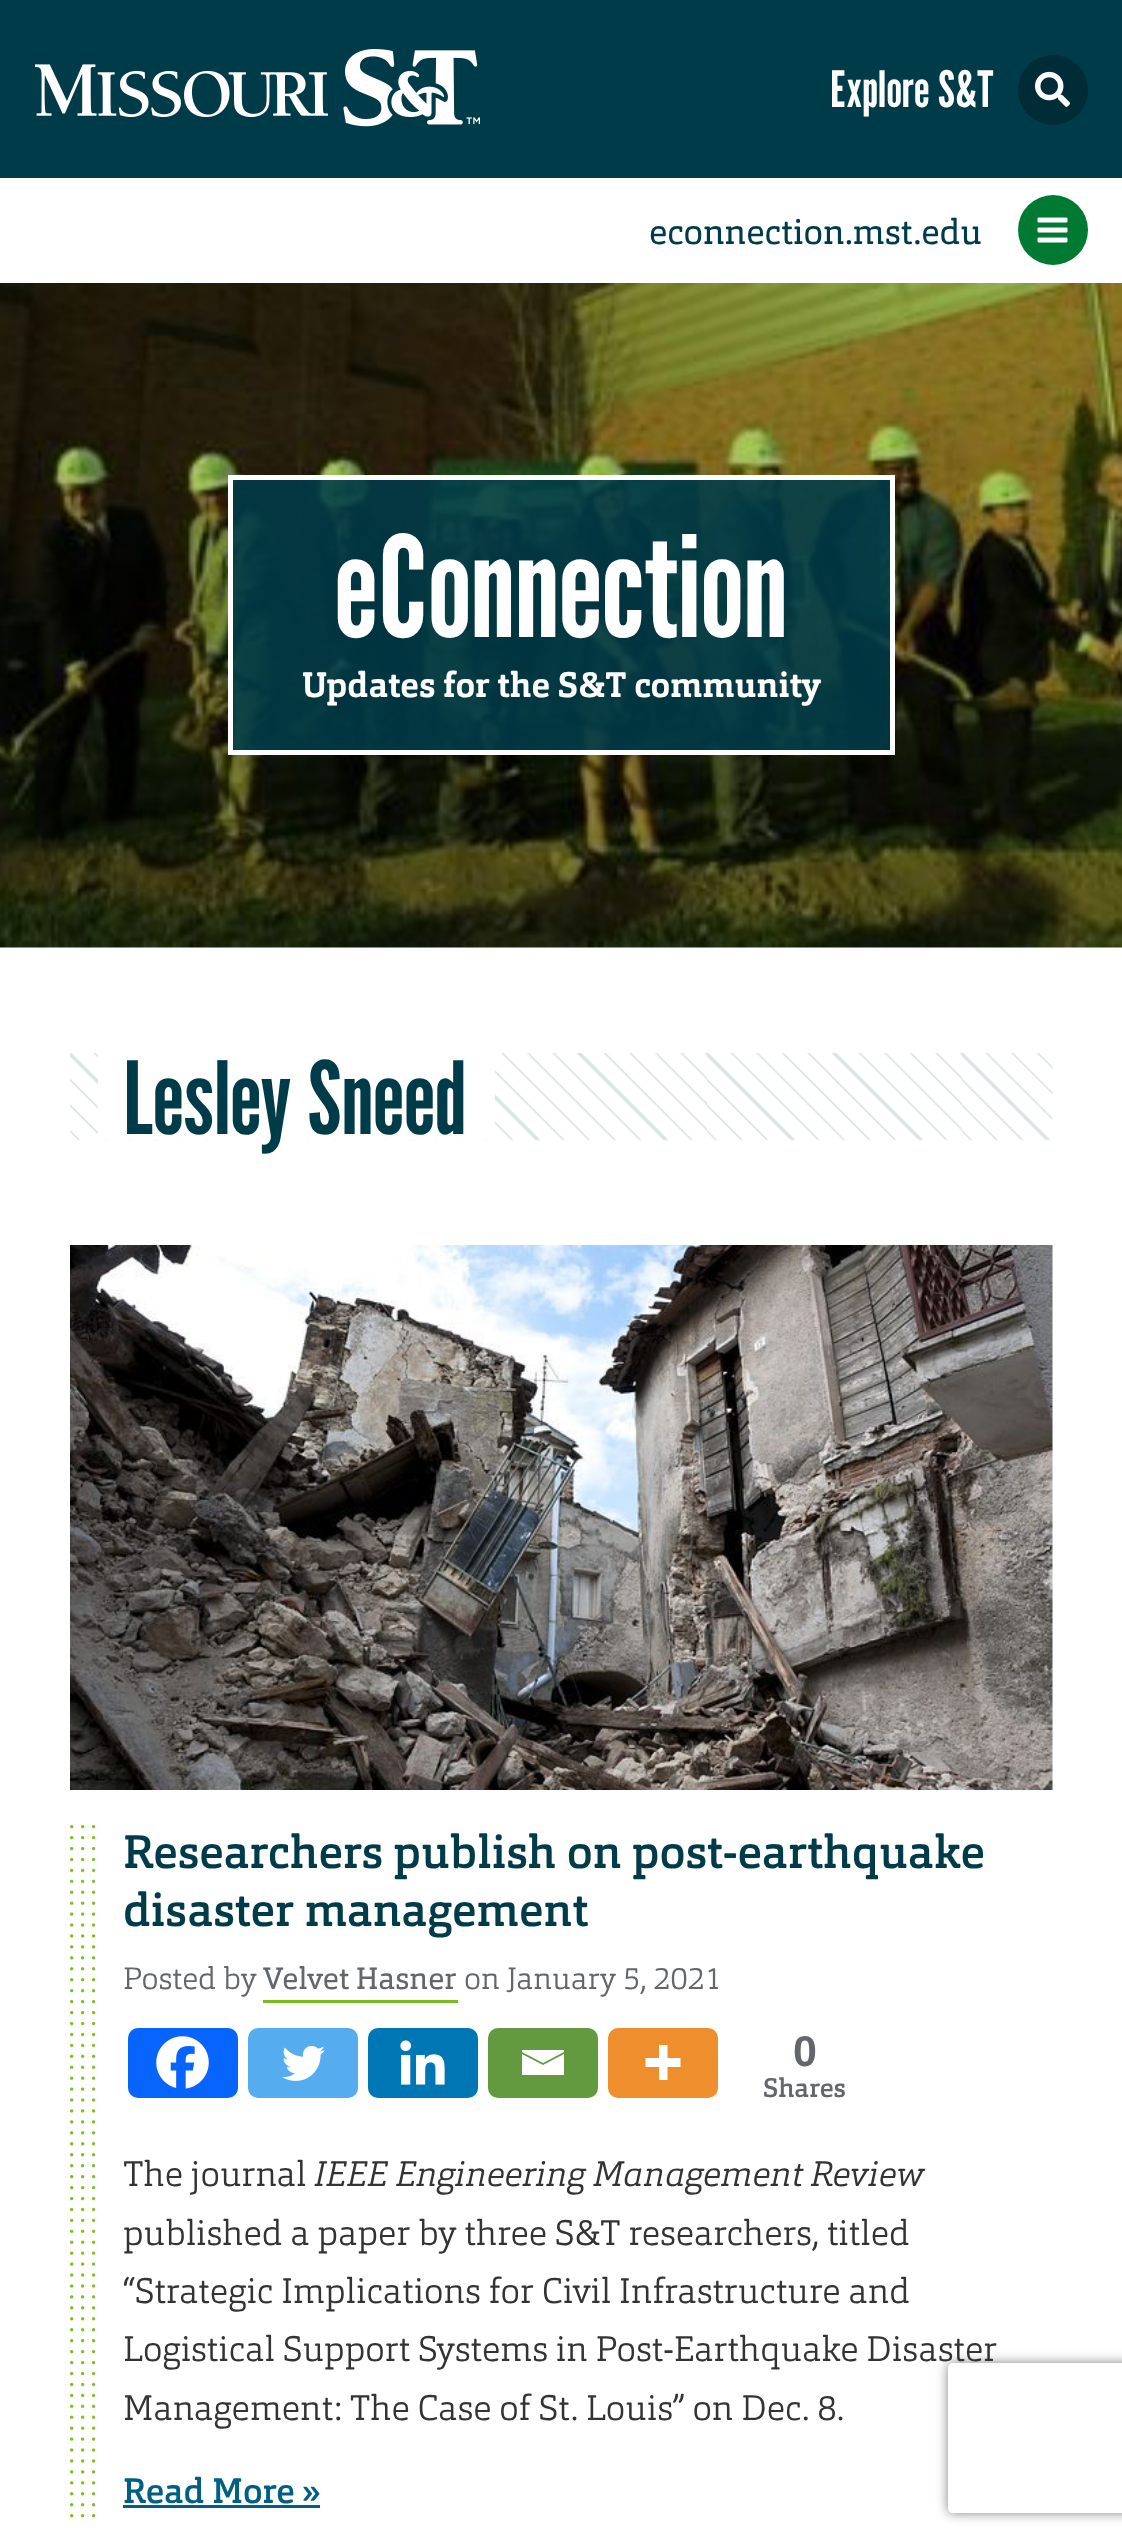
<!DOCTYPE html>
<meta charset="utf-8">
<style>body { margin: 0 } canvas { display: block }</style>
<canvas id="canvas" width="1122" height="2546"></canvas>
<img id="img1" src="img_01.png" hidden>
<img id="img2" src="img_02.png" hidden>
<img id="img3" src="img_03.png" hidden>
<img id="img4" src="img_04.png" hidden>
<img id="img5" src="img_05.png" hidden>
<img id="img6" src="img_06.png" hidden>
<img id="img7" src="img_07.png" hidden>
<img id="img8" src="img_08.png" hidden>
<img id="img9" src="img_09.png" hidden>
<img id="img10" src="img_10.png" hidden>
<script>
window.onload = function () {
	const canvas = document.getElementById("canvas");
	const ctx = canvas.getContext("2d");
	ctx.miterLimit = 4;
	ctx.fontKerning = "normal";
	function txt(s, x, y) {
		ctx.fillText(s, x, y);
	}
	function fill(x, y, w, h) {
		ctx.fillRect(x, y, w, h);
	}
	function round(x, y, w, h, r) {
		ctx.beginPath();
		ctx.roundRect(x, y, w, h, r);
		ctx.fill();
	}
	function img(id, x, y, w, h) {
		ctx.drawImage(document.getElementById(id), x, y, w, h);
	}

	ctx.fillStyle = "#FFFFFF";
	fill(0, 0, 1122, 2546);
	ctx.fillStyle = "#003B49";
	fill(0, 0, 1122, 178);
	img("img1", 35, 49, 445, 78);
	ctx.fillStyle = "#002C37";
	ctx.beginPath();
	ctx.arc(1053, 90, 35, 0, Math.PI * 2);
	ctx.fill();
	img("img2", 1035, 71, 35, 36);
	ctx.fillStyle = "#007A33";
	ctx.beginPath();
	ctx.arc(1053, 230, 35, 0, Math.PI * 2);
	ctx.fill();
	img("img3", 1037, 217, 31, 26);
	img("img4", 0, 283, 1122, 665);
	ctx.fillStyle = "rgba(0, 59, 73, 0.88)";
	ctx.beginPath();
	ctx.rect(230.5, 477.5, 662, 275);
	ctx.fill();
	ctx.strokeStyle = "#FFFFFF";
	ctx.lineWidth = 5;
	ctx.stroke();
	img("img5", 70, 1053, 983, 88);
	ctx.fillStyle = "#FFFFFF";
	fill(98, 1053, 397, 87);
	img("img6", 70, 1245, 983, 545);
	img("img7", 70, 1825, 26, 693);
	ctx.fillStyle = "#78BE20";
	fill(263, 2000, 195, 3);
	ctx.fillStyle = "#0765FE";
	round(128, 2028, 110, 70, 10);
	img("img8", 156, 2036, 53, 53);
	ctx.fillStyle = "#55ACEE";
	round(248, 2028, 110, 70, 10);
	img("img9", 282, 2045, 43, 36);
	ctx.fillStyle = "#0077B5";
	round(368, 2028, 110, 70, 10);
	img("img10", 400, 2040, 45, 45);
	ctx.fillStyle = "#649A3F";
	round(488, 2028, 110, 70, 10);
	ctx.fillStyle = "#FFFFFF";
	ctx.beginPath();
	ctx.moveTo(520, 2050);
	ctx.lineTo(564, 2050);
	ctx.lineTo(564, 2052);
	ctx.lineTo(543, 2063);
	ctx.lineTo(522, 2052);
	ctx.lineTo(522, 2050);
	ctx.moveTo(522, 2054);
	ctx.lineTo(543, 2065);
	ctx.lineTo(564, 2054);
	ctx.lineTo(564, 2075);
	ctx.lineTo(522, 2075);
	ctx.lineTo(522, 2054);
	ctx.fill();
	ctx.fillStyle = "#EE8E2D";
	round(608, 2028, 110, 70, 10);
	ctx.fillStyle = "#FFFFFF";
	ctx.beginPath();
	ctx.moveTo(667.5, 2058);
	ctx.lineTo(667.5, 2045);
	ctx.lineTo(659, 2045);
	ctx.lineTo(659, 2058);
	ctx.lineTo(645.5, 2058);
	ctx.lineTo(645.5, 2067);
	ctx.lineTo(659, 2067);
	ctx.lineTo(659, 2080);
	ctx.lineTo(667.5, 2080);
	ctx.lineTo(667.5, 2067);
	ctx.lineTo(680.5, 2067);
	ctx.lineTo(680.5, 2058);
	ctx.closePath();
	ctx.fill("evenodd");
	ctx.fillStyle = "#005F83";
	fill(123, 2505, 197, 3);
	ctx.save();
	ctx.beginPath();
	ctx.moveTo(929, 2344);
	ctx.lineTo(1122, 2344);
	ctx.lineTo(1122, 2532);
	ctx.lineTo(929, 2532);
	ctx.closePath();
	ctx.moveTo(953, 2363);
	ctx.lineTo(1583, 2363);
	ctx.bezierCurveTo(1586, 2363, 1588, 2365, 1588, 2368);
	ctx.lineTo(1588, 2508);
	ctx.bezierCurveTo(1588, 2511, 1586, 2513, 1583, 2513);
	ctx.lineTo(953, 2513);
	ctx.bezierCurveTo(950, 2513, 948, 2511, 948, 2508);
	ctx.lineTo(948, 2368);
	ctx.bezierCurveTo(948, 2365, 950, 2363, 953, 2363);
	ctx.closePath();
	ctx.clip("evenodd");
	ctx.fillStyle = "#808080";
	ctx.filter = "blur(6px)";
	ctx.beginPath();
	ctx.roundRect(948, 2363, 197, 150, 5);
	ctx.fill();
	ctx.filter = "none";
	ctx.restore();
	ctx.letterSpacing = "0.5px";
	ctx.font = "50px League Gothic";
	ctx.fillStyle = "#FFFFFF";
	txt("Explore S&T", 830, 107);
	ctx.letterSpacing = "0px";
	ctx.font = "35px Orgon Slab";
	ctx.fillStyle = "#003B49";
	txt("econnection.mst.edu", 649, 244);
	ctx.letterSpacing = "0.75px";
	ctx.font = "140px League Gothic";
	ctx.fillStyle = "#FFFFFF";
	txt("eConnection", 335, 637);
	ctx.letterSpacing = "0px";
	ctx.font = "bold 35px Orgon Slab";
	txt("Updates for the S&T community", 302, 697);
	ctx.letterSpacing = "0.5px";
	ctx.font = "100.5px League Gothic";
	ctx.fillStyle = "#003B49";
	txt("Lesley Sneed", 123, 1134);
	ctx.letterSpacing = "0px";
	ctx.font = "500 46.5px Orgon Slab";
	txt("Researchers publish on post-earthquake", 123, 1868);
	txt("disaster management", 123, 1926);
	ctx.font = "300 30.6px Orgon Slab";
	ctx.fillStyle = "#63666A";
	txt("Posted by", 123, 1989);
	ctx.font = "30.6px Orgon Slab";
	txt("Velvet Hasner", 263, 1989);
	ctx.font = "300 30.6px Orgon Slab";
	txt("on January 5, 2021", 464, 1989);
	ctx.font = "bold 43px Liberation Sans";
	txt("0", 793, 2066);
	ctx.font = "500 26.5px Orgon Slab";
	txt("Shares", 763, 2097);
	ctx.font = "300 35px Orgon Slab";
	ctx.fillStyle = "#333333";
	txt("The journal", 123, 2186);
	ctx.font = "italic 300 35px Orgon Slab";
	txt("IEEE Engineering Management Review", 314, 2186);
	ctx.font = "300 35px Orgon Slab";
	txt("published a paper by three S&T researchers, titled", 123, 2245);
	txt("“Strategic Implications for Civil Infrastructure and", 123, 2303);
	txt("Logistical Support Systems in Post-Earthquake Disaster", 123, 2361);
	txt("Management: The Case of St. Louis” on Dec. 8.", 123, 2420);
	ctx.font = "500 35px Orgon Slab";
	ctx.fillStyle = "#005F83";
	txt("Read More »", 123, 2503);
};
</script>
